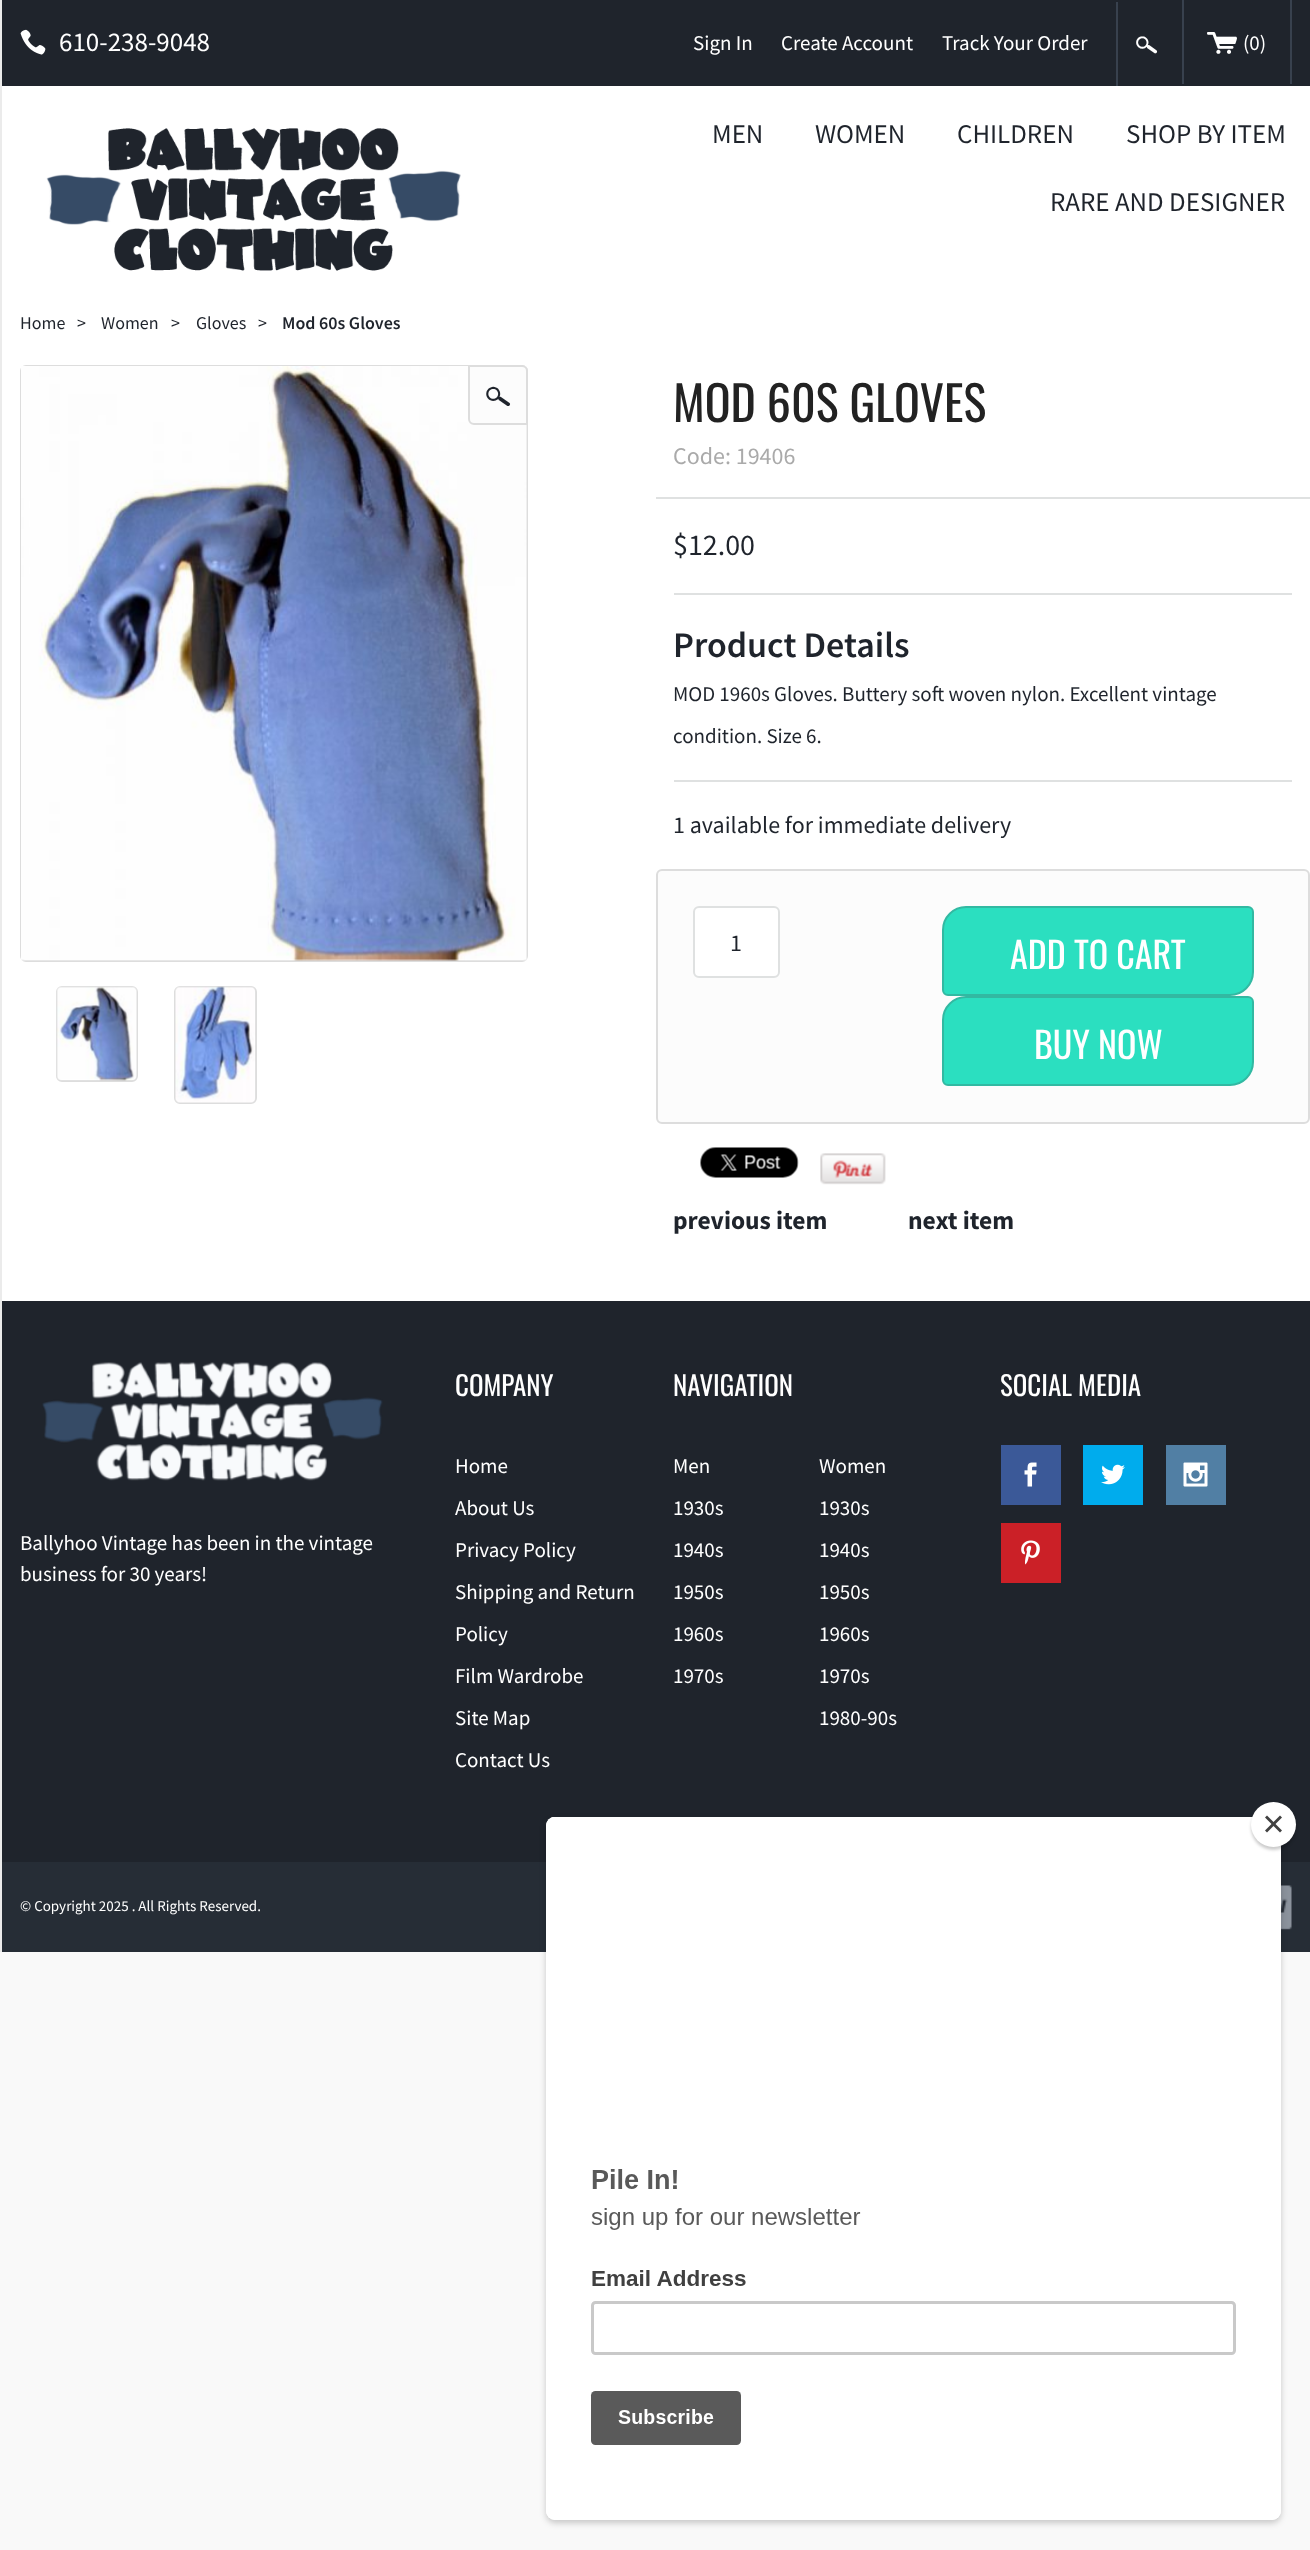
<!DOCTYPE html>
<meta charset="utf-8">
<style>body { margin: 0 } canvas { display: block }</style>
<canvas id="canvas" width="1310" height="2550"></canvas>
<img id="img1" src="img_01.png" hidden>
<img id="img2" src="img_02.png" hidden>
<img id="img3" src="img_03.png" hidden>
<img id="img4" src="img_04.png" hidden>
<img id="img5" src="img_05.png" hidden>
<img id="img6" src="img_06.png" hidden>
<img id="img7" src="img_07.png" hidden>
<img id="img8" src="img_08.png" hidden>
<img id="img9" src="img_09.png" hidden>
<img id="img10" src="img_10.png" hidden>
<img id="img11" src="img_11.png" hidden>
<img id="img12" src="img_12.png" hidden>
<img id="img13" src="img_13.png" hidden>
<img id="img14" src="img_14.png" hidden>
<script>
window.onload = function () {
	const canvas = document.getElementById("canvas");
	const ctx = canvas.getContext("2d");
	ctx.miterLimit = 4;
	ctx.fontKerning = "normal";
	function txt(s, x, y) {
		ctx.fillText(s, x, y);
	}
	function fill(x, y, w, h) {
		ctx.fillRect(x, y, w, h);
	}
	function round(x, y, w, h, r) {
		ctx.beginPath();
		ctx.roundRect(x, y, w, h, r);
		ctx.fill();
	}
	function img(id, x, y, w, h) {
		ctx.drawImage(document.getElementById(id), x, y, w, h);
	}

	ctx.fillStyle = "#F9F9F9";
	fill(0, 0, 1310, 2550);
	ctx.fillStyle = "#EBEBEB";
	fill(0, 0, 2, 1952);
	ctx.fillStyle = "#FFFFFF";
	fill(2, 86, 1308, 1215);
	ctx.fillStyle = "#1F242C";
	fill(2, 0, 1308, 86);
	img("img1", 20, 29, 26, 26);
	ctx.fillStyle = "#38414E";
	fill(1116, 2, 2, 84);
	fill(1290, 0, 2, 84);
	fill(1182, 0, 2, 84);
	img("img2", 46, 128, 415, 143);
	ctx.beginPath();
	ctx.roundRect(21, 366, 506, 595, 5);
	ctx.strokeStyle = "#DDDDDD";
	ctx.lineWidth = 2;
	ctx.stroke();
	img("img3", 21, 366, 506, 595);
	ctx.fillStyle = "#FCFCFC";
	ctx.beginPath();
	ctx.roundRect(469, 366, 58, 58, [0, 5, 0, 5]);
	ctx.fill();
	ctx.stroke();
	ctx.beginPath();
	ctx.roundRect(57, 987, 80, 94, 5);
	ctx.stroke();
	img("img4", 56, 986, 81, 95);
	ctx.beginPath();
	ctx.roundRect(175, 987, 81, 116, 5);
	ctx.stroke();
	img("img5", 175, 986, 81, 117);
	ctx.fillStyle = "#DFE1E1";
	fill(656, 497, 654, 2);
	fill(674, 593, 618, 2);
	fill(674, 780, 618, 2);
	ctx.fillStyle = "#FCFCFC";
	ctx.beginPath();
	ctx.roundRect(657, 870, 652, 253, 5);
	ctx.fill();
	ctx.stroke();
	ctx.fillStyle = "#FFFFFF";
	ctx.beginPath();
	ctx.roundRect(694, 907, 85, 70, 5);
	ctx.fill();
	ctx.strokeStyle = "#DFE1E1";
	ctx.stroke();
	ctx.fillStyle = "#2BDFC0";
	ctx.beginPath();
	ctx.roundRect(943, 907, 310, 88, [23, 5, 23, 5]);
	ctx.fill();
	ctx.strokeStyle = "#32B9A2";
	ctx.stroke();
	ctx.beginPath();
	ctx.roundRect(943, 997, 310, 88, [23, 5, 23, 5]);
	ctx.fill();
	ctx.stroke();
	img("img6", 700, 1147, 99, 31);
	img("img7", 820, 1153, 66, 32);
	ctx.fillStyle = "#1F242C";
	fill(2, 1301, 1308, 561);
	ctx.fillStyle = "#3B5998";
	fill(1001, 1445, 60, 60);
	img("img8", 1024, 1462, 13, 25);
	ctx.fillStyle = "#00ACED";
	fill(1083, 1445, 60, 60);
	img("img9", 1101, 1464, 24, 21);
	ctx.fillStyle = "#517FA4";
	fill(1166, 1445, 60, 60);
	img("img10", 1183, 1462, 25, 25);
	ctx.fillStyle = "#CB2027";
	fill(1001, 1523, 60, 60);
	img("img11", 1021, 1540, 19, 25);
	img("img12", 42, 1362, 341, 119);
	ctx.fillStyle = "#262D36";
	fill(2, 1862, 1308, 90);
	img("img13", 1281, 1885, 11, 45);
	ctx.fillStyle = "rgba(0, 0, 0, 0.2)";
	ctx.filter = "blur(3px)";
	ctx.beginPath();
	ctx.roundRect(546, 1820, 735, 703, 9);
	ctx.fill();
	ctx.filter = "none";
	ctx.fillStyle = "#FFFFFF";
	round(546, 1817, 735, 703, 9);
	img("img14", 546, 1817, 735, 703);
	ctx.fillStyle = "rgba(0, 0, 0, 0.2)";
	ctx.filter = "blur(1.5px)";
	ctx.beginPath();
	ctx.roundRect(1251, 1805, 45, 45, 22.5);
	ctx.fill();
	ctx.filter = "none";
	ctx.fillStyle = "#FFFFFF";
	ctx.beginPath();
	ctx.arc(1273.5, 1824.5, 22.5, 0, Math.PI * 2);
	ctx.fill();
	ctx.fillStyle = "#414141";
	ctx.beginPath();
	ctx.moveTo(1280, 1815.5);
	ctx.lineTo(1282, 1817.5);
	ctx.lineTo(1267, 1832.5);
	ctx.lineTo(1265, 1830.5);
	ctx.closePath();
	ctx.fill();
	ctx.beginPath();
	ctx.moveTo(1265, 1817.5);
	ctx.lineTo(1267, 1815.5);
	ctx.lineTo(1282, 1830.5);
	ctx.lineTo(1280, 1832.5);
	ctx.closePath();
	ctx.fill();
	ctx.font = "27px Source Sans Pro";
	ctx.fillStyle = "#FFFFFF";
	txt("610-238-9048", 59, 51);
	ctx.font = "21px Source Sans Pro";
	txt("Sign In", 693, 50);
	txt("Create Account", 781, 50);
	txt("Track Your Order", 942, 50);
	ctx.font = "21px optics";
	txt("1", 1136, 54);
	ctx.font = "30px optics";
	txt("0", 1207, 56);
	ctx.font = "21px Source Sans Pro";
	txt("(0)", 1243, 50);
	ctx.font = "27px Source Sans Pro";
	ctx.fillStyle = "#1F242C";
	txt("MEN", 712, 143);
	txt("WOMEN", 815, 143);
	txt("CHILDREN", 957, 143);
	txt("SHOP BY ITEM", 1126, 143);
	txt("RARE AND DESIGNER", 1050, 211);
	ctx.font = "18px Source Sans Pro";
	txt("Home", 20, 329);
	txt(">", 77, 329);
	txt("Women", 101, 329);
	txt(">", 171, 329);
	txt("Gloves", 196, 329);
	txt(">", 258, 329);
	ctx.font = "600 18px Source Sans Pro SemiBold";
	txt("Mod 60s Gloves", 282, 329);
	ctx.font = "24px optics";
	txt("1", 486, 407);
	ctx.font = "48px Oswald";
	ctx.fillStyle = "#222222";
	txt("MOD 60S GLOVES", 673, 422);
	ctx.font = "24px Source Sans Pro";
	ctx.fillStyle = "#AAAAAA";
	txt("Code: 19406", 673, 464);
	ctx.font = "30px Source Sans Pro";
	ctx.fillStyle = "#1F242C";
	txt("$12.00", 673, 555);
	ctx.font = "600 36px Source Sans Pro SemiBold";
	txt("Product Details", 673, 657);
	ctx.font = "21px Source Sans Pro";
	txt("MOD 1960s Gloves. Buttery soft woven nylon. Excellent vintage", 673, 701);
	txt("condition. Size 6.", 673, 743);
	ctx.font = "24px Source Sans Pro";
	txt("1 available for immediate delivery", 673, 833);
	txt("1", 730, 951);
	ctx.font = "36px Oswald";
	ctx.fillStyle = "#FFFFFF";
	txt("ADD TO CART", 1010, 969);
	txt("BUY NOW", 1034, 1059);
	ctx.font = "bold 25.5px Source Sans Pro";
	ctx.fillStyle = "#1F242C";
	txt("previous item", 673, 1229);
	txt("next item", 908, 1229);
	ctx.font = "27px Oswald";
	ctx.fillStyle = "#FFFFFF";
	txt("COMPANY", 455, 1396);
	ctx.font = "21px Source Sans Pro";
	txt("Home", 455, 1473);
	txt("About Us", 455, 1515);
	txt("Privacy Policy", 455, 1557);
	txt("Shipping and Return", 455, 1599);
	txt("Policy", 455, 1641);
	txt("Film Wardrobe", 455, 1683);
	txt("Site Map", 455, 1725);
	txt("Contact Us", 455, 1767);
	ctx.font = "27px Oswald";
	txt("NAVIGATION", 673, 1396);
	ctx.font = "21px Source Sans Pro";
	txt("Men", 673, 1473);
	txt("1930s", 673, 1515);
	txt("1940s", 673, 1557);
	txt("1950s", 673, 1599);
	txt("1960s", 673, 1641);
	txt("1970s", 673, 1683);
	txt("Women", 819, 1473);
	txt("1930s", 819, 1515);
	txt("1940s", 819, 1557);
	txt("1950s", 819, 1599);
	txt("1960s", 819, 1641);
	txt("1970s", 819, 1683);
	txt("1980-90s", 819, 1725);
	ctx.font = "27px Oswald";
	txt("SOCIAL MEDIA", 1000, 1396);
	ctx.font = "21px Source Sans Pro";
	txt("Ballyhoo Vintage has been in the vintage", 20, 1550);
	txt("business for 30 years!", 20, 1581);
	ctx.font = "15px Source Sans Pro";
	txt("© Copyright 2025 . All Rights Reserved.", 20, 1911);
};
</script>
